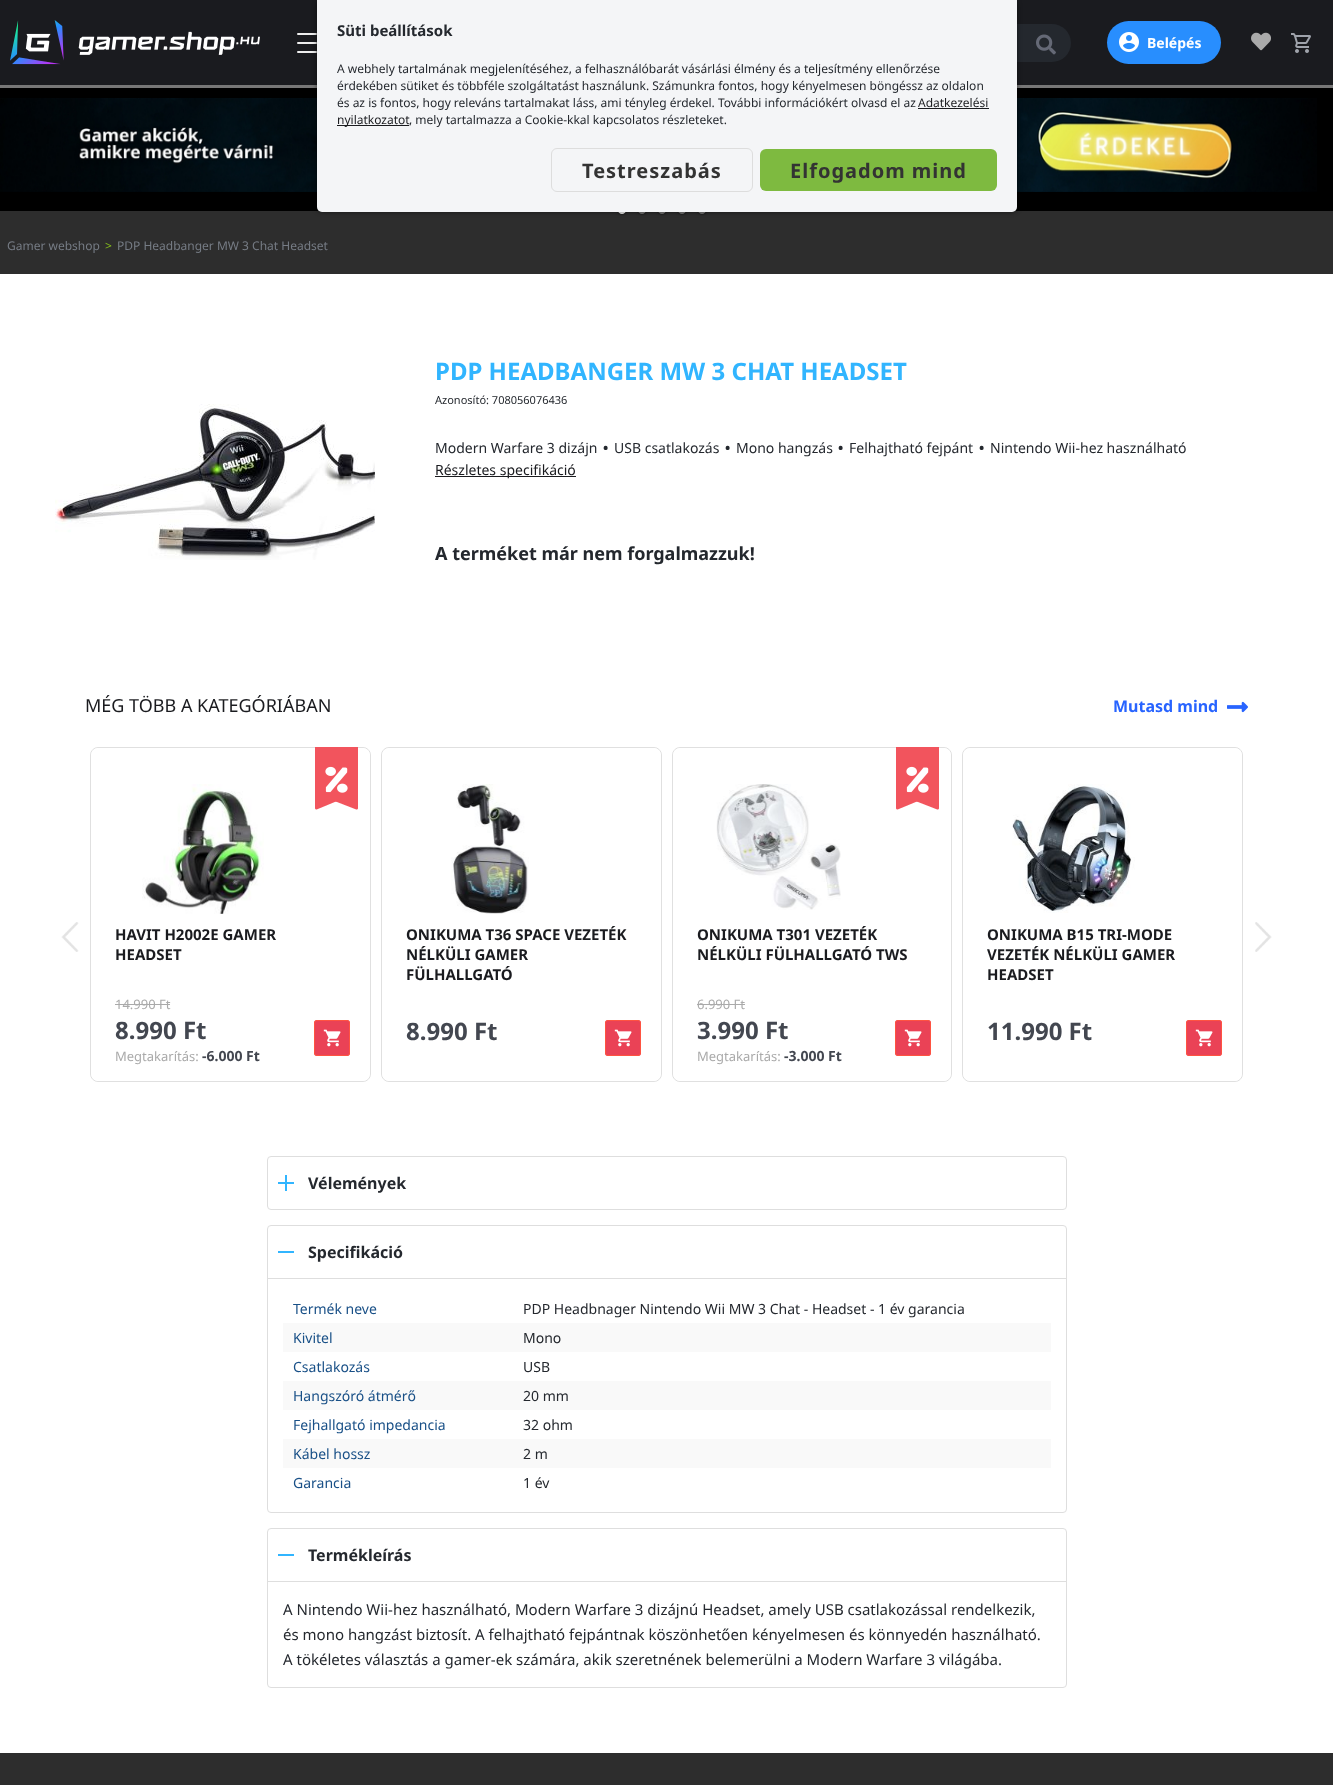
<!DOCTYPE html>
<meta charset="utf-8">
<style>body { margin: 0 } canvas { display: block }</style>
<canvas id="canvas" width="1333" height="1785"></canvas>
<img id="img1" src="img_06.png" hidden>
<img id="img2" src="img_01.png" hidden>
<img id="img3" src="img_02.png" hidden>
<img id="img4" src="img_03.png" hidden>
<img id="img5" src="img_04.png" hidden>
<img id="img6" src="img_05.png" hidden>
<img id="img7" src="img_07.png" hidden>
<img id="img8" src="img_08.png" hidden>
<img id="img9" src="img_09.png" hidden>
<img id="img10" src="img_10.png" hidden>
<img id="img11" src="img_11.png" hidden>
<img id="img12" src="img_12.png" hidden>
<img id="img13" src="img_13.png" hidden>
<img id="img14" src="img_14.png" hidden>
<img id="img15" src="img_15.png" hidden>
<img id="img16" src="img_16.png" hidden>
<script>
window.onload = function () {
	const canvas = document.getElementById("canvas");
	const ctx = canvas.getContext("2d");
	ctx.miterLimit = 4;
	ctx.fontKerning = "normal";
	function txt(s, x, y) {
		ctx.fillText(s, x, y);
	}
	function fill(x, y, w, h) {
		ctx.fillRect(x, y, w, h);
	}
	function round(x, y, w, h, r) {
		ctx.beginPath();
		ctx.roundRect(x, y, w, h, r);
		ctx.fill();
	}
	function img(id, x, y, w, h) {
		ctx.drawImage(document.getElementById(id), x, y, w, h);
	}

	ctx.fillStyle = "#2D2D2D";
	fill(0, 0, 1333, 1785);
	ctx.fillStyle = "#1A1B1F";
	fill(0, 0, 1333, 85);
	ctx.fillStyle = "#EEEEEE";
	round(297, 33, 20, 2, 1);
	round(297, 42, 20, 2, 1);
	round(297, 51, 20, 2, 1);
	ctx.fillStyle = "#24282E";
	fill(1017, 24, 4, 38);
	ctx.beginPath();
	ctx.roundRect(1021, 24, 50, 38, [0, 19, 19, 0]);
	ctx.fill();
	ctx.fillStyle = "#777777";
	fill(0, 85, 1333, 3);
	ctx.fillStyle = "#000000";
	fill(0, 88, 1333, 123);
	img("img1", 0, 98, 1317, 94);
	ctx.fillStyle = "rgba(0, 0, 0, 0.7)";
	ctx.filter = "blur(1px)";
	ctx.beginPath();
	ctx.roundRect(617, 204, 10, 10, 5);
	ctx.fill();
	ctx.filter = "none";
	ctx.fillStyle = "#EEEEEE";
	ctx.beginPath();
	ctx.arc(622, 209, 4.5, 0, Math.PI * 2);
	ctx.fill();
	ctx.strokeStyle = "#EEEEEE";
	ctx.stroke();
	ctx.fillStyle = "rgba(0, 0, 0, 0.7)";
	ctx.filter = "blur(1px)";
	ctx.beginPath();
	ctx.roundRect(637, 204, 10, 10, 5);
	ctx.fill();
	ctx.filter = "none";
	ctx.fillStyle = "#777777";
	ctx.beginPath();
	ctx.arc(642, 209, 4.5, 0, Math.PI * 2);
	ctx.fill();
	ctx.strokeStyle = "#777777";
	ctx.stroke();
	ctx.fillStyle = "rgba(0, 0, 0, 0.7)";
	ctx.filter = "blur(1px)";
	ctx.beginPath();
	ctx.roundRect(657, 204, 10, 10, 5);
	ctx.fill();
	ctx.filter = "none";
	ctx.fillStyle = "#777777";
	ctx.beginPath();
	ctx.arc(662, 209, 4.5, 0, Math.PI * 2);
	ctx.fill();
	ctx.stroke();
	ctx.fillStyle = "rgba(0, 0, 0, 0.7)";
	ctx.filter = "blur(1px)";
	ctx.beginPath();
	ctx.roundRect(677, 204, 10, 10, 5);
	ctx.fill();
	ctx.filter = "none";
	ctx.fillStyle = "#777777";
	ctx.beginPath();
	ctx.arc(682, 209, 4.5, 0, Math.PI * 2);
	ctx.fill();
	ctx.stroke();
	ctx.fillStyle = "rgba(0, 0, 0, 0.7)";
	ctx.filter = "blur(1px)";
	ctx.beginPath();
	ctx.roundRect(697, 204, 10, 10, 5);
	ctx.fill();
	ctx.filter = "none";
	ctx.fillStyle = "#777777";
	ctx.beginPath();
	ctx.arc(702, 209, 4.5, 0, Math.PI * 2);
	ctx.fill();
	ctx.stroke();
	ctx.fillStyle = "rgba(0, 0, 0, 0.5)";
	ctx.filter = "blur(2.5px)";
	ctx.beginPath();
	ctx.roundRect(317, 0, 700, 212, 5);
	ctx.fill();
	ctx.filter = "none";
	ctx.fillStyle = "#F4F5F7";
	ctx.beginPath();
	ctx.roundRect(317, 0, 700, 212, [0, 0, 5, 5]);
	ctx.fill();
	ctx.fillStyle = "#1A1B1F";
	fill(918, 108, 71, 1);
	fill(337, 125, 72, 1);
	ctx.beginPath();
	ctx.roundRect(551.5, 148.5, 201, 43, 5.5);
	ctx.strokeStyle = "#DDDDDD";
	ctx.stroke();
	ctx.fillStyle = "#7EBA40";
	round(760, 149, 237, 42, 6);
	img("img2", 10, 20, 250, 45);
	img("img3", 1036, 34, 20, 21);
	ctx.fillStyle = "#288EFE";
	round(1107, 21, 114, 43, 21.5);
	img("img4", 1119, 32, 20, 20);
	img("img5", 1251, 32, 20, 19);
	img("img6", 1291, 33, 20, 20);
	ctx.fillStyle = "#FFFFFF";
	fill(0, 274, 1333, 1479);
	img("img7", 55, 404, 320, 156);
	ctx.fillStyle = "#1A1B1F";
	fill(435, 476, 141, 1);
	img("img8", 1227, 701, 21, 12);
	img("img9", 61, 922, 18, 30);
	ctx.beginPath();
	ctx.roundRect(90.5, 747.5, 280, 334, 7.5);
	ctx.strokeStyle = "#E0E0E0";
	ctx.stroke();
	ctx.fillStyle = "#FFFFFF";
	round(91, 748, 279, 333, 8);
	img("img10", 142, 784, 122, 130);
	img("img11", 315, 747, 43, 63);
	ctx.fillStyle = "#AAAAAA";
	fill(115, 1004, 55, 1);
	ctx.fillStyle = "#EA4256";
	round(314, 1020, 36, 36, 3);
	img("img12", 323, 1029, 18, 18);
	ctx.beginPath();
	ctx.roundRect(314.5, 1020.5, 35, 35, 2.5);
	ctx.strokeStyle = "#FF5341";
	ctx.stroke();
	ctx.beginPath();
	ctx.roundRect(381.5, 747.5, 280, 334, 7.5);
	ctx.strokeStyle = "#E0E0E0";
	ctx.stroke();
	ctx.fillStyle = "#FFFFFF";
	round(382, 748, 279, 333, 8);
	img("img13", 451, 784, 78, 130);
	ctx.fillStyle = "#EA4256";
	round(605, 1020, 36, 36, 3);
	img("img12", 614, 1029, 18, 18);
	ctx.beginPath();
	ctx.roundRect(605.5, 1020.5, 35, 35, 2.5);
	ctx.strokeStyle = "#FF5341";
	ctx.stroke();
	ctx.beginPath();
	ctx.roundRect(672.5, 747.5, 279, 334, 7.5);
	ctx.strokeStyle = "#E0E0E0";
	ctx.stroke();
	ctx.fillStyle = "#FFFFFF";
	round(673, 748, 278, 333, 8);
	img("img14", 716, 784, 125, 126);
	img("img11", 896, 747, 43, 63);
	ctx.fillStyle = "#AAAAAA";
	fill(697, 1004, 48, 1);
	ctx.fillStyle = "#EA4256";
	round(895, 1020, 36, 36, 3);
	img("img12", 904, 1029, 18, 18);
	ctx.beginPath();
	ctx.roundRect(895.5, 1020.5, 35, 35, 2.5);
	ctx.strokeStyle = "#FF5341";
	ctx.stroke();
	ctx.beginPath();
	ctx.roundRect(962.5, 747.5, 280, 334, 7.5);
	ctx.strokeStyle = "#E0E0E0";
	ctx.stroke();
	ctx.fillStyle = "#FFFFFF";
	round(963, 748, 279, 333, 8);
	img("img15", 1012, 784, 123, 129);
	ctx.fillStyle = "#EA4256";
	round(1186, 1020, 36, 36, 3);
	img("img12", 1195, 1029, 18, 18);
	ctx.beginPath();
	ctx.roundRect(1186.5, 1020.5, 35, 35, 2.5);
	ctx.strokeStyle = "#FF5341";
	ctx.stroke();
	img("img16", 1255, 922, 17, 30);
	ctx.beginPath();
	ctx.roundRect(267.5, 1156.5, 799, 53, 3.5);
	ctx.strokeStyle = "#DEDEDE";
	ctx.stroke();
	ctx.fillStyle = "#31B5FF";
	fill(278, 1182, 16, 2);
	fill(285, 1175, 2, 16);
	ctx.beginPath();
	ctx.roundRect(267.5, 1225.5, 799, 287, 3.5);
	ctx.stroke();
	fill(278, 1251, 16, 2);
	ctx.fillStyle = "#DEDEDE";
	fill(268, 1278, 798, 1);
	ctx.fillStyle = "#F9F9F9";
	fill(283, 1323, 768, 29);
	fill(283, 1381, 768, 29);
	fill(283, 1439, 768, 29);
	ctx.beginPath();
	ctx.roundRect(267.5, 1528.5, 799, 159, 3.5);
	ctx.stroke();
	ctx.fillStyle = "#31B5FF";
	fill(278, 1554, 16, 2);
	ctx.fillStyle = "#DEDEDE";
	fill(268, 1581, 798, 1);
	ctx.font = "bold 15px Noto Sans";
	ctx.fillStyle = "#24282E";
	txt("Süti beállítások", 337, 36);
	ctx.font = "12px Noto Sans";
	txt("A webhely tartalmának megjelenítéséhez, a felhasználóbarát vásárlási élmény és a teljesítmény ellenőrzése", 337, 73);
	txt("érdekében sütiket és többféle szolgáltatást használunk. Számunkra fontos, hogy kényelmesen böngéssz az oldalon", 337, 90);
	txt("és az is fontos, hogy releváns tartalmakat láss, ami tényleg érdekel. További információkért olvasd el az", 337, 107);
	ctx.fillStyle = "#1A1B1F";
	txt("Adatkezelési", 918, 107);
	txt("nyilatkozatot", 337, 124);
	ctx.fillStyle = "#24282E";
	txt(", mely tartalmazza a Cookie-kkal kapcsolatos részleteket.", 409, 124);
	ctx.letterSpacing = "1px";
	ctx.font = "bold 20px Noto Sans";
	ctx.fillStyle = "#333333";
	txt("Testreszabás", 582, 178);
	txt("Elfogadom mind", 790, 178);
	ctx.letterSpacing = "0px";
	ctx.font = "bold 14px Noto Sans";
	ctx.fillStyle = "#FFFFFF";
	txt("Belépés", 1147, 48);
	ctx.font = "12px Noto Sans";
	ctx.fillStyle = "#767C85";
	txt("Gamer webshop", 7, 250);
	ctx.fillStyle = "#82B81C";
	txt(">", 105, 250);
	ctx.fillStyle = "#767C85";
	txt("PDP Headbanger MW 3 Chat Headset", 117, 250);
	ctx.font = "bold 24px Noto Sans";
	ctx.fillStyle = "#31B5FF";
	txt("PDP HEADBANGER MW 3 CHAT HEADSET", 435, 380);
	ctx.font = "11px Noto Sans";
	ctx.fillStyle = "#24282E";
	txt("Azonosító: 708056076436", 435, 404);
	ctx.font = "14px Noto Sans";
	txt("Modern Warfare 3 dizájn", 435, 453);
	ctx.font = "bold 14px Noto Sans";
	txt("•", 603, 453);
	ctx.font = "14px Noto Sans";
	txt("USB csatlakozás", 614, 453);
	ctx.font = "bold 14px Noto Sans";
	txt("•", 725, 453);
	ctx.font = "14px Noto Sans";
	txt("Mono hangzás", 736, 453);
	ctx.font = "bold 14px Noto Sans";
	txt("•", 838, 453);
	ctx.font = "14px Noto Sans";
	txt("Felhajtható fejpánt", 849, 453);
	ctx.font = "bold 14px Noto Sans";
	txt("•", 979, 453);
	ctx.font = "14px Noto Sans";
	txt("Nintendo Wii-hez használható", 990, 453);
	ctx.fillStyle = "#1A1B1F";
	txt("Részletes specifikáció", 435, 475);
	ctx.font = "bold 18px Noto Sans";
	ctx.fillStyle = "#24282E";
	txt("A terméket már nem forgalmazzuk!", 435, 560);
	ctx.font = "18px Noto Sans";
	ctx.fillStyle = "#1A1B1F";
	txt("MÉG TÖBB A KATEGÓRIÁBAN", 85, 712);
	ctx.font = "bold 16px Noto Sans";
	ctx.fillStyle = "#2864FF";
	txt("Mutasd mind", 1113, 712);
	ctx.font = "bold 15px Noto Sans";
	ctx.fillStyle = "#1A1B1F";
	txt("HAVIT H2002E GAMER", 115, 940);
	txt("HEADSET", 115, 960);
	ctx.font = "13px Noto Sans";
	ctx.fillStyle = "#AAAAAA";
	txt("14.990 Ft", 115, 1009);
	ctx.font = "bold 24px Noto Sans";
	ctx.fillStyle = "#434750";
	txt("8.990 Ft", 115, 1039);
	ctx.font = "13px Noto Sans";
	ctx.fillStyle = "#AAAAAA";
	txt("Megtakarítás:", 115, 1061);
	ctx.font = "bold 14px Noto Sans";
	ctx.fillStyle = "#434750";
	txt("-6.000 Ft", 202, 1061);
	ctx.font = "bold 15px Noto Sans";
	ctx.fillStyle = "#1A1B1F";
	txt("ONIKUMA T36 SPACE VEZETÉK", 406, 940);
	txt("NÉLKÜLI GAMER", 406, 960);
	txt("FÜLHALLGATÓ", 406, 980);
	ctx.font = "bold 24px Noto Sans";
	ctx.fillStyle = "#434750";
	txt("8.990 Ft", 406, 1040);
	ctx.font = "bold 15px Noto Sans";
	ctx.fillStyle = "#1A1B1F";
	txt("ONIKUMA T301 VEZETÉK", 697, 940);
	txt("NÉLKÜLI FÜLHALLGATÓ TWS", 697, 960);
	ctx.font = "13px Noto Sans";
	ctx.fillStyle = "#AAAAAA";
	txt("6.990 Ft", 697, 1009);
	ctx.font = "bold 24px Noto Sans";
	ctx.fillStyle = "#434750";
	txt("3.990 Ft", 697, 1039);
	ctx.font = "13px Noto Sans";
	ctx.fillStyle = "#AAAAAA";
	txt("Megtakarítás:", 697, 1061);
	ctx.font = "bold 14px Noto Sans";
	ctx.fillStyle = "#434750";
	txt("-3.000 Ft", 784, 1061);
	ctx.font = "bold 15px Noto Sans";
	ctx.fillStyle = "#1A1B1F";
	txt("ONIKUMA B15 TRI-MODE", 987, 940);
	txt("VEZETÉK NÉLKÜLI GAMER", 987, 960);
	txt("HEADSET", 987, 980);
	ctx.font = "bold 24px Noto Sans";
	ctx.fillStyle = "#434750";
	txt("11.990 Ft", 987, 1040);
	ctx.font = "bold 16px Noto Sans";
	ctx.fillStyle = "#24282E";
	txt("Vélemények", 308, 1189);
	txt("Specifikáció", 308, 1258);
	ctx.font = "14px Noto Sans";
	ctx.fillStyle = "#195087";
	txt("Termék neve", 293, 1314);
	ctx.fillStyle = "#24282E";
	txt("PDP Headbnager Nintendo Wii MW 3 Chat - Headset - 1 év garancia", 523, 1314);
	ctx.fillStyle = "#195087";
	txt("Kivitel", 293, 1343);
	ctx.fillStyle = "#24282E";
	txt("Mono", 523, 1343);
	ctx.fillStyle = "#195087";
	txt("Csatlakozás", 293, 1372);
	ctx.fillStyle = "#24282E";
	txt("USB", 523, 1372);
	ctx.fillStyle = "#195087";
	txt("Hangszóró átmérő", 293, 1401);
	ctx.fillStyle = "#24282E";
	txt("20 mm", 523, 1401);
	ctx.fillStyle = "#195087";
	txt("Fejhallgató impedancia", 293, 1430);
	ctx.fillStyle = "#24282E";
	txt("32 ohm", 523, 1430);
	ctx.fillStyle = "#195087";
	txt("Kábel hossz", 293, 1459);
	ctx.fillStyle = "#24282E";
	txt("2 m", 523, 1459);
	ctx.fillStyle = "#195087";
	txt("Garancia", 293, 1488);
	ctx.fillStyle = "#24282E";
	txt("1 év", 523, 1488);
	ctx.font = "bold 16px Noto Sans";
	txt("Termékleírás", 308, 1561);
	ctx.font = "15px Noto Sans";
	txt("A Nintendo Wii-hez használható, Modern Warfare 3 dizájnú Headset, amely USB csatlakozással rendelkezik,", 283, 1615);
	txt("és mono hangzást biztosít. A felhajtható fejpántnak köszönhetően kényelmesen és könnyedén használható.", 283, 1640);
	txt("A tökéletes választás a gamer-ek számára, akik szeretnének belemerülni a Modern Warfare 3 világába.", 283, 1665);
};
</script>
